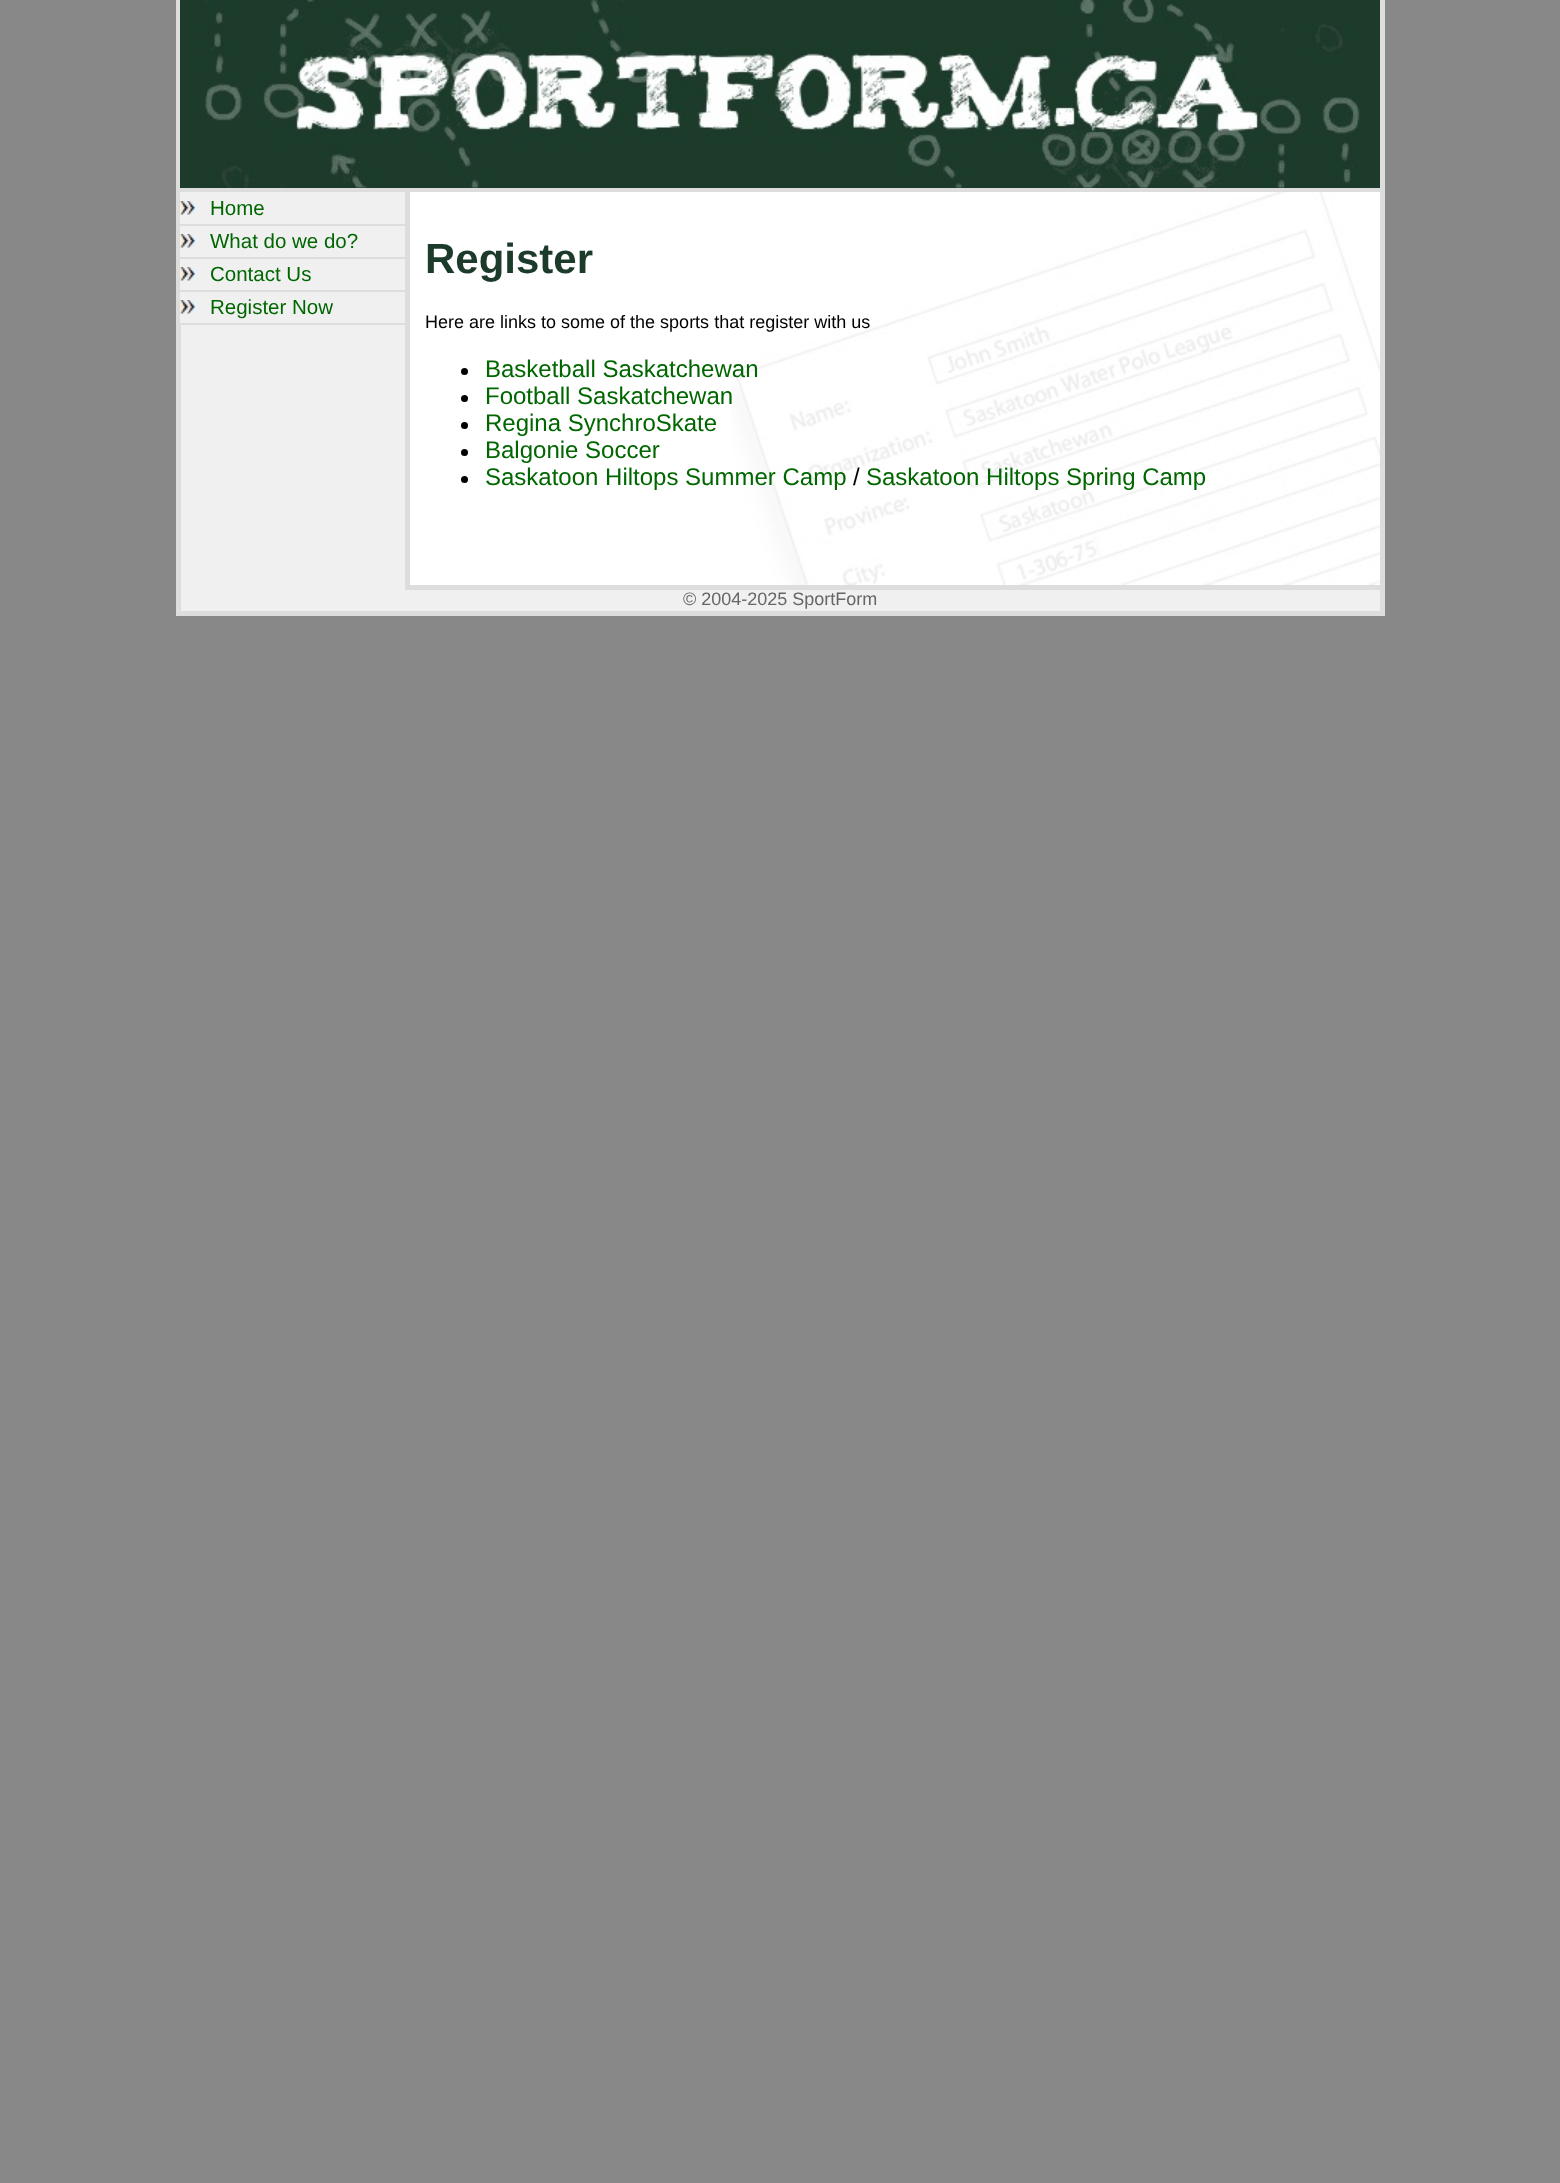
<!DOCTYPE html>
<meta charset="utf-8">
<style>body { margin: 0 } canvas { display: block }</style>
<canvas id="canvas" width="1560" height="2183"></canvas>
<img id="img1" src="img_01.png" hidden>
<img id="img2" src="img_02.png" hidden>
<img id="img3" src="img_03.png" hidden>
<script>
window.onload = function () {
	const canvas = document.getElementById("canvas");
	const ctx = canvas.getContext("2d");
	ctx.miterLimit = 4;
	ctx.fontKerning = "normal";
	function txt(s, x, y) {
		ctx.fillText(s, x, y);
	}
	function fill(x, y, w, h) {
		ctx.fillRect(x, y, w, h);
	}
	function img(id, x, y, w, h) {
		ctx.drawImage(document.getElementById(id), x, y, w, h);
	}

	ctx.fillStyle = "#888888";
	fill(0, 0, 1560, 2183);
	ctx.fillStyle = "#F0F0F0";
	fill(181, 325, 1199, 286);
	ctx.fillStyle = "#DDDDDD";
	fill(1380, 0, 5, 615);
	fill(176, 611, 1209, 5);
	fill(176, 0, 5, 615);
	ctx.fillStyle = "#1C3B2B";
	fill(180, 0, 1200, 188);
	img("img1", 205, 0, 1155, 188);
	ctx.fillStyle = "#DDDDDD";
	fill(180, 188, 1200, 4);
	ctx.fillStyle = "#F0F0F0";
	fill(180, 192, 225, 131);
	img("img2", 180, 201, 15, 14);
	ctx.fillStyle = "#DDDDDD";
	fill(180, 224, 225, 2);
	img("img2", 180, 234, 15, 14);
	fill(180, 257, 225, 2);
	img("img2", 180, 267, 15, 14);
	fill(180, 290, 225, 2);
	img("img2", 180, 300, 15, 14);
	fill(180, 323, 225, 2);
	ctx.fillStyle = "#FFFFFF";
	fill(410, 192, 321, 393);
	img("img3", 731, 192, 649, 393);
	ctx.fillStyle = "#DDDDDD";
	fill(405, 585, 975, 5);
	fill(405, 192, 5, 398);
	ctx.fillStyle = "#000000";
	ctx.beginPath();
	ctx.arc(464.5, 371.5, 3.5, 0, Math.PI * 2);
	ctx.fill();
	ctx.beginPath();
	ctx.arc(464.5, 398.5, 3.5, 0, Math.PI * 2);
	ctx.fill();
	ctx.beginPath();
	ctx.arc(464.5, 425.5, 3.5, 0, Math.PI * 2);
	ctx.fill();
	ctx.beginPath();
	ctx.arc(464.5, 452.5, 3.5, 0, Math.PI * 2);
	ctx.fill();
	ctx.beginPath();
	ctx.arc(464.5, 479.5, 3.5, 0, Math.PI * 2);
	ctx.fill();
	ctx.font = "20.5px Liberation Sans";
	ctx.fillStyle = "#006600";
	txt("Home", 210, 215);
	txt("What do we do?", 210, 248);
	txt("Contact Us", 210, 281);
	txt("Register Now", 210, 314);
	ctx.font = "bold 42px Liberation Sans";
	ctx.fillStyle = "#1C3B2B";
	txt("Register", 425, 273);
	ctx.font = "18px Liberation Sans";
	ctx.fillStyle = "#000000";
	txt("Here are links to some of the sports that register with us", 425, 328);
	ctx.font = "24px Liberation Sans";
	ctx.fillStyle = "#006600";
	txt("Basketball Saskatchewan", 485, 377);
	txt("Football Saskatchewan", 485, 404);
	txt("Regina SynchroSkate", 485, 431);
	txt("Balgonie Soccer", 485, 458);
	txt("Saskatoon Hiltops Summer Camp", 485, 485);
	ctx.fillStyle = "#000000";
	txt("/", 853, 485);
	ctx.fillStyle = "#006600";
	txt("Saskatoon Hiltops Spring Camp", 866, 485);
	ctx.font = "18px Liberation Sans";
	ctx.fillStyle = "#666666";
	txt("© 2004-2025 SportForm", 683, 605);
};
</script>
